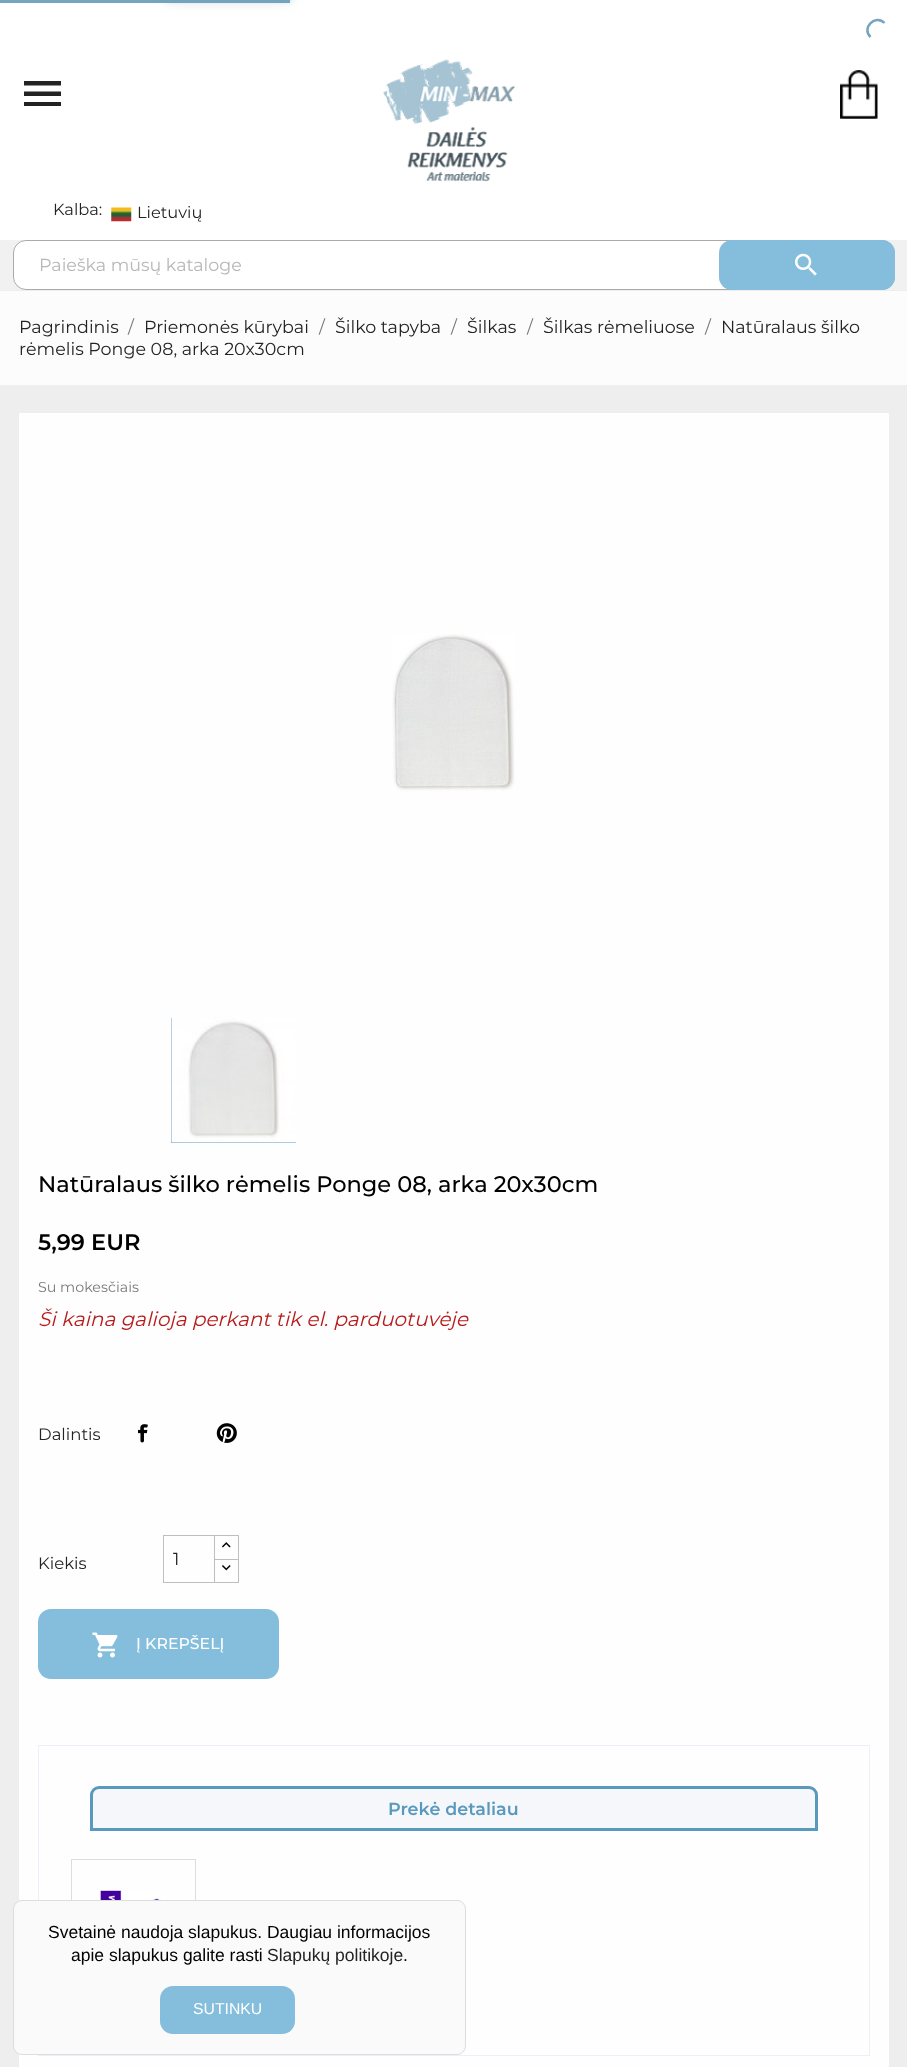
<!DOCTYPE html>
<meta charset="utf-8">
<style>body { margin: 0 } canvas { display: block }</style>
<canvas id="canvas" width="907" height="2067"></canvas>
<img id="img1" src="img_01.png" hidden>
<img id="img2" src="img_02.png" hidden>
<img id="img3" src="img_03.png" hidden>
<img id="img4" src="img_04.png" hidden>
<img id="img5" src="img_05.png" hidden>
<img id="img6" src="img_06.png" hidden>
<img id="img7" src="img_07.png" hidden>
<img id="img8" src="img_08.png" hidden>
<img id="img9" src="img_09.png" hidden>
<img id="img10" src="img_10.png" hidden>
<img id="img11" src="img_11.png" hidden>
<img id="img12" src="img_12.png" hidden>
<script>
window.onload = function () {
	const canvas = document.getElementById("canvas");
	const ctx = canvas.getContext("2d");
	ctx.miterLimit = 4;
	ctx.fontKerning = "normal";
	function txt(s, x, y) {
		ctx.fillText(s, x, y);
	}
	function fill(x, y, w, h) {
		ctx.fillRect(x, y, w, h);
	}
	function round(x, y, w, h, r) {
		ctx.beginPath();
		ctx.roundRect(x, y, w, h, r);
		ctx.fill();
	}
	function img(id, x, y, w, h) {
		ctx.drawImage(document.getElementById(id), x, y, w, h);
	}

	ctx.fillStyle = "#EEEEEE";
	fill(0, 0, 907, 2067);
	ctx.fillStyle = "#FFFFFF";
	fill(0, 0, 907, 240);
	ctx.fillStyle = "#75A4BE";
	fill(0, 0, 290, 3);
	ctx.filter = "blur(3px)";
	ctx.beginPath();
	ctx.rect(166, -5, 125, 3);
	ctx.fill();
	ctx.filter = "none";
	ctx.filter = "blur(6.5px)";
	ctx.beginPath();
	ctx.rect(166, -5, 125, 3);
	ctx.fill();
	ctx.filter = "none";
	ctx.beginPath();
	ctx.moveTo(870.5, 37);
	ctx.bezierCurveTo(861, 28, 875.5, 13.5, 884.5, 23);
	ctx.strokeStyle = "#75A4BE";
	ctx.lineWidth = 2.5;
	ctx.stroke();
	ctx.fillStyle = "#232323";
	ctx.beginPath();
	ctx.moveTo(24, 81);
	ctx.lineTo(61, 81);
	ctx.lineTo(61, 85.5);
	ctx.lineTo(24, 85.5);
	ctx.closePath();
	ctx.moveTo(24, 96);
	ctx.lineTo(24, 91.5);
	ctx.lineTo(61, 91.5);
	ctx.lineTo(61, 96);
	ctx.closePath();
	ctx.moveTo(24, 106);
	ctx.lineTo(24, 102);
	ctx.lineTo(61, 102);
	ctx.lineTo(61, 106);
	ctx.closePath();
	ctx.fill();
	img("img1", 383, 59, 132, 123);
	img("img2", 840, 70, 38, 49);
	img("img3", 111, 207, 21, 15);
	ctx.fillStyle = "#F1F1F1";
	fill(0, 240, 907, 50);
	ctx.fillStyle = "#FFFFFF";
	ctx.beginPath();
	ctx.roundRect(13.5, 240.5, 881, 49, 12.5);
	ctx.fill();
	ctx.strokeStyle = "#AAAAAA";
	ctx.lineWidth = 1;
	ctx.stroke();
	ctx.fillStyle = "#84BEDC";
	round(719, 240, 176, 50, 13);
	img("img4", 795, 253, 22, 23);
	ctx.fillStyle = "#FCFCFC";
	fill(0, 291, 907, 94);
	ctx.fillStyle = "#FEFEFE";
	fill(19, 413, 870, 1654);
	img("img5", 392, 634, 123, 158);
	ctx.fillStyle = "#5999BE";
	fill(171, 1018, 125, 125);
	img("img6", 171, 1018, 125, 125);
	img("img7", 138, 1424, 10, 19);
	img("img8", 216, 1423, 21, 20);
	ctx.strokeStyle = "#BFBFBF";
	ctx.strokeRect(214.5, 1535.5, 24, 47);
	ctx.strokeRect(163.5, 1535.5, 51, 47);
	img("img9", 222, 1542, 9, 6);
	ctx.fillStyle = "#BFBFBF";
	fill(215, 1559, 23, 1);
	img("img10", 222, 1565, 9, 6);
	ctx.fillStyle = "#84BEDC";
	round(38, 1609, 241, 70, 13);
	img("img11", 92, 1632, 26, 26);
	ctx.strokeStyle = "#ECEFF7";
	ctx.strokeRect(38.5, 1745.5, 831, 310);
	ctx.fillStyle = "#F5F7FB";
	ctx.beginPath();
	ctx.roundRect(91.5, 1787.5, 725, 42, [7.5, 7.5, 0, 0]);
	ctx.fill();
	ctx.strokeStyle = "#5999BE";
	ctx.lineWidth = 3;
	ctx.stroke();
	ctx.strokeStyle = "#DDDDDD";
	ctx.lineWidth = 1;
	ctx.strokeRect(71.5, 1859.5, 124, 124);
	img("img12", 100, 1890, 66, 10);
	ctx.fillStyle = "#FAFAFA";
	ctx.beginPath();
	ctx.roundRect(13.5, 1900.5, 452, 154, 8.5);
	ctx.fill();
	ctx.stroke();
	ctx.fillStyle = "#84BEDC";
	round(160, 1986, 135, 48, 13);
	ctx.font = "16.25px Montserrat";
	ctx.fillStyle = "#232323";
	txt("Kalba:", 53, 215);
	txt("Lietuvių", 137, 218);
	ctx.font = "17.5px Montserrat";
	ctx.fillStyle = "#B7B7B7";
	txt("Paieška mūsų kataloge", 39, 271);
	ctx.fillStyle = "#232323";
	txt("Pagrindinis", 19, 333);
	ctx.fillStyle = "#7A7A7A";
	txt("/", 128, 333);
	ctx.fillStyle = "#232323";
	txt("Priemonės kūrybai", 144, 333);
	ctx.fillStyle = "#7A7A7A";
	txt("/", 319, 333);
	ctx.fillStyle = "#232323";
	txt("Šilko tapyba", 335, 333);
	ctx.fillStyle = "#7A7A7A";
	txt("/", 451, 333);
	ctx.fillStyle = "#232323";
	txt("Šilkas", 467, 333);
	ctx.fillStyle = "#7A7A7A";
	txt("/", 527, 333);
	ctx.fillStyle = "#232323";
	txt("Šilkas rėmeliuose", 543, 333);
	ctx.fillStyle = "#7A7A7A";
	txt("/", 705, 333);
	ctx.fillStyle = "#232323";
	txt("Natūralaus šilko", 721, 333);
	txt("rėmelis Ponge 08, arka 20x30cm", 19, 355);
	ctx.font = "500 22.5px Montserrat";
	ctx.fillStyle = "#000000";
	txt("Natūralaus šilko rėmelis Ponge 08, arka 20x30cm", 38, 1192);
	ctx.font = "600 22.5px Montserrat";
	txt("5,99 EUR", 38, 1250);
	ctx.font = "14.25px Montserrat";
	ctx.fillStyle = "#7A7A7A";
	txt("Su mokesčiais", 38, 1292);
	ctx.font = "italic 20px Montserrat";
	ctx.fillStyle = "#B71C1C";
	txt("Ši kaina galioja perkant tik el. parduotuvėje", 38, 1326);
	ctx.font = "16.5px Montserrat";
	ctx.fillStyle = "#232323";
	txt("Dalintis", 38, 1440);
	txt("Kiekis", 38, 1569);
	ctx.font = "17.5px Montserrat";
	txt("1", 173, 1565);
	ctx.font = "500 15.75px Montserrat";
	ctx.fillStyle = "#FFFFFF";
	txt("Į KREPŠELĮ", 136, 1649);
	ctx.font = "600 17.5px Montserrat";
	ctx.fillStyle = "#5999BE";
	txt("Prekė detaliau", 388, 1815);
	ctx.font = "17.5px Liberation Sans";
	ctx.fillStyle = "#000000";
	txt("Svetainė naudoja slapukus. Daugiau informacijos", 48, 1938);
	txt("apie slapukus galite rasti", 71, 1961);
	ctx.fillStyle = "#232323";
	txt("Slapukų politikoje", 267, 1961);
	ctx.fillStyle = "#000000";
	txt(".", 403, 1961);
	ctx.font = "15.75px Liberation Sans";
	ctx.fillStyle = "#FFFFFF";
	txt("SUTINKU", 193, 2014);
};
</script>
